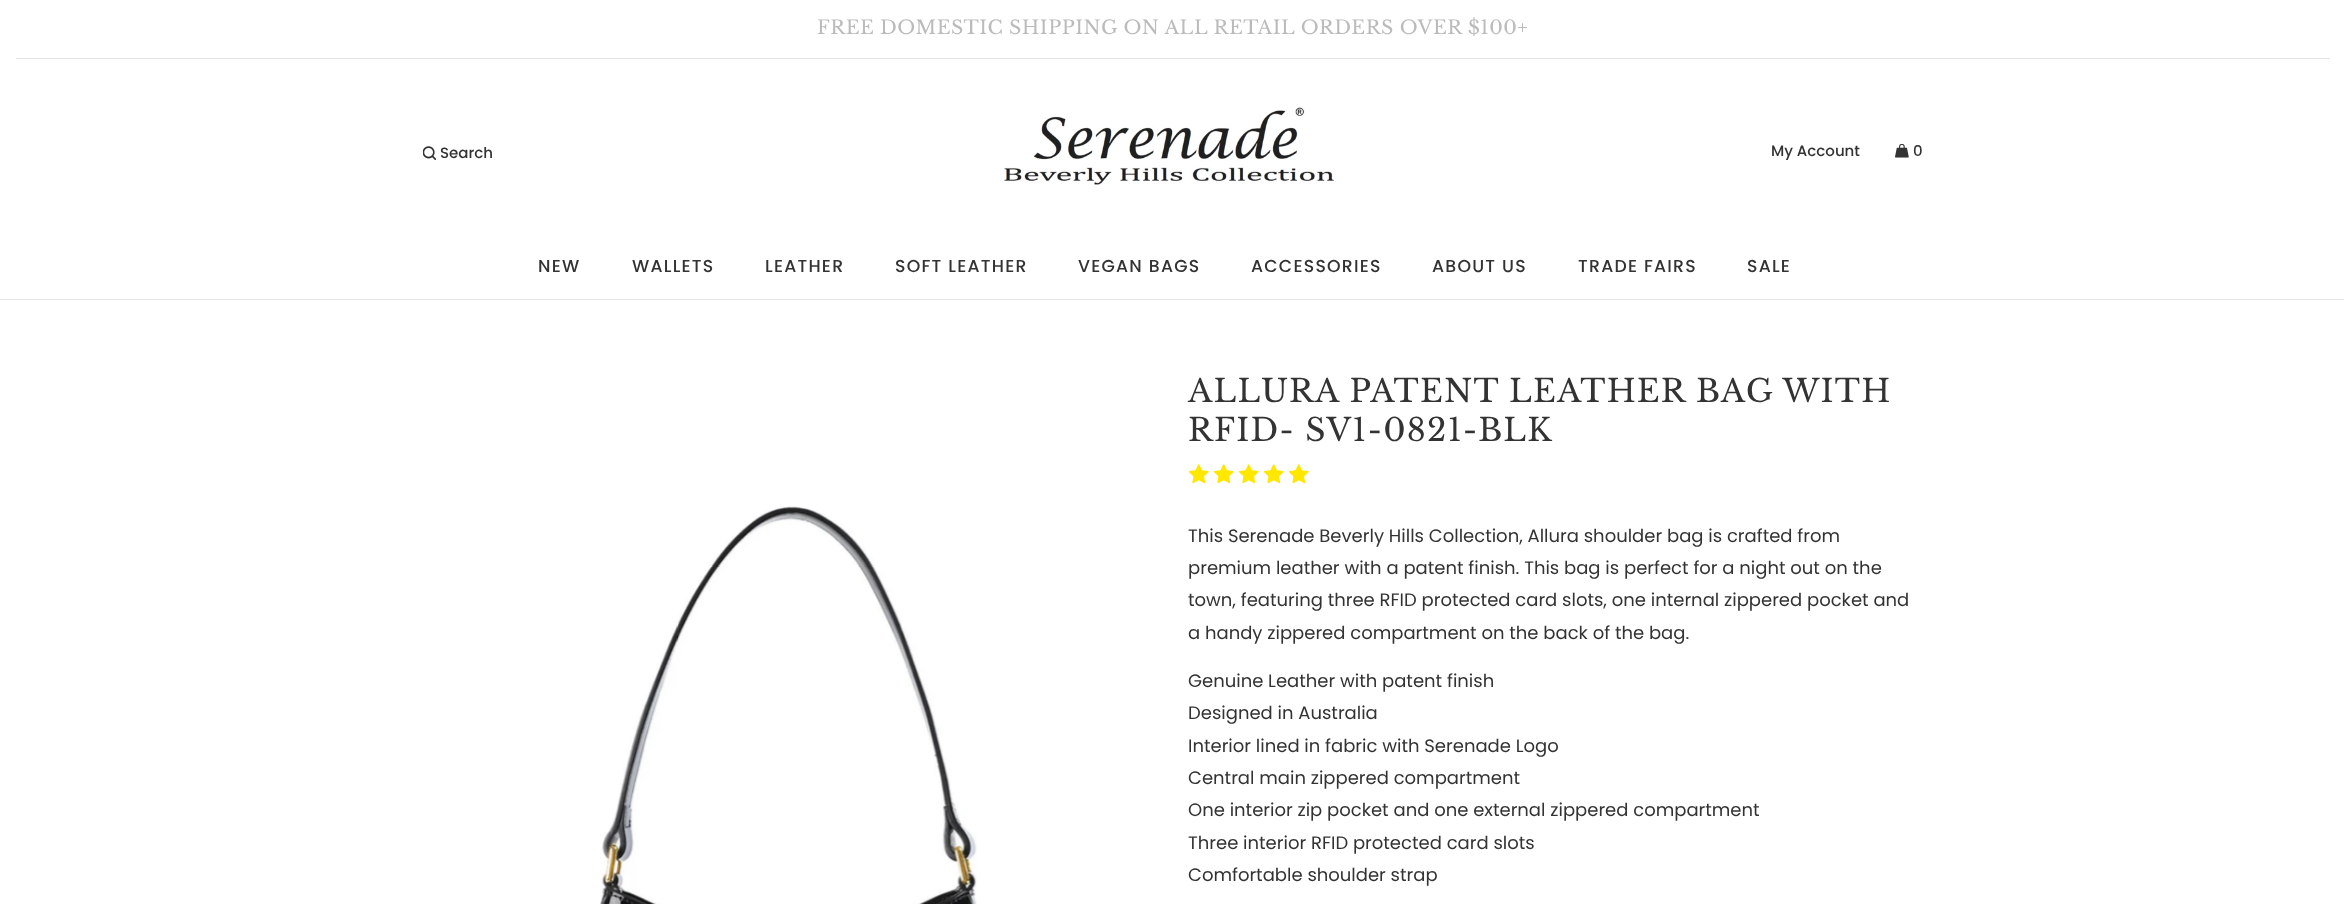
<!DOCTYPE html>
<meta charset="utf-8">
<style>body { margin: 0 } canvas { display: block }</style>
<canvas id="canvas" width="2344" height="904"></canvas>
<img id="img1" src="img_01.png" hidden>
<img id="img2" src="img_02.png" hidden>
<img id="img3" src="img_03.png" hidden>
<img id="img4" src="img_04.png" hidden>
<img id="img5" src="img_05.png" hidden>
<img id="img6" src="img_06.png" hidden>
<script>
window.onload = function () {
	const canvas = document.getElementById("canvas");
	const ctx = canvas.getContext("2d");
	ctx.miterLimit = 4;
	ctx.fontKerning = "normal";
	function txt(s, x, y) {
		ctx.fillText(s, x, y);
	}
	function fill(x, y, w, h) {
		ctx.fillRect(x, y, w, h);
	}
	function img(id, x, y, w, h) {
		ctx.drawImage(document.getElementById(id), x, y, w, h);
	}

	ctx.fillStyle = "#FFFFFF";
	fill(0, 0, 2344, 904);
	ctx.fillStyle = "#E5E5E5";
	fill(16, 58, 2314, 1);
	img("img1", 423, 146, 13, 14);
	img("img2", 1004, 107, 331, 78);
	img("img3", 1895, 144, 14, 14);
	fill(0, 299, 2344, 1);
	img("img4", 600, 506, 377, 2);
	img("img5", 600, 508, 377, 396);
	img("img6", 1188, 464, 21, 20);
	img("img6", 1213, 464, 21, 20);
	img("img6", 1238, 464, 21, 20);
	img("img6", 1263, 464, 21, 20);
	img("img6", 1288, 464, 21, 20);
	ctx.letterSpacing = "0.47px";
	ctx.font = "19px Libre Baskerville";
	ctx.fillStyle = "#BBBBBB";
	txt("FREE DOMESTIC SHIPPING ON ALL RETAIL ORDERS OVER $100+", 817, 34);
	ctx.letterSpacing = "0px";
	ctx.font = "500 15px Poppins";
	ctx.fillStyle = "#333333";
	txt("Search", 440, 158);
	txt("My Account", 1771, 156);
	txt("0", 1913, 156);
	ctx.letterSpacing = "1.25px";
	ctx.font = "500 17.25px Poppins";
	txt("NEW", 538, 272);
	txt("WALLETS", 632, 272);
	txt("LEATHER", 765, 272);
	txt("SOFT LEATHER", 895, 272);
	txt("VEGAN BAGS", 1078, 272);
	txt("ACCESSORIES", 1251, 272);
	txt("ABOUT US", 1432, 272);
	txt("TRADE FAIRS", 1578, 272);
	txt("SALE", 1747, 272);
	ctx.letterSpacing = "1.2px";
	ctx.font = "31.4px Libre Baskerville";
	txt("ALLURA PATENT LEATHER BAG WITH", 1188, 402);
	txt("RFID- SV1-0821-BLK", 1188, 441);
	ctx.letterSpacing = "0px";
	ctx.font = "18px Poppins";
	txt("This Serenade Beverly Hills Collection, Allura shoulder bag is crafted from", 1188, 542);
	txt("premium leather with a patent finish. This bag is perfect for a night out on the", 1188, 574);
	txt("town, featuring three RFID protected card slots, one internal zippered pocket and", 1188, 606);
	txt("a handy zippered compartment on the back of the bag.", 1188, 639);
	txt("Genuine Leather with patent finish", 1188, 687);
	txt("Designed in Australia", 1188, 719);
	txt("Interior lined in fabric with Serenade Logo", 1188, 752);
	txt("Central main zippered compartment", 1188, 784);
	txt("One interior zip pocket and one external zippered compartment", 1188, 816);
	txt("Three interior RFID protected card slots", 1188, 849);
	txt("Comfortable shoulder strap", 1188, 881);
};
</script>
